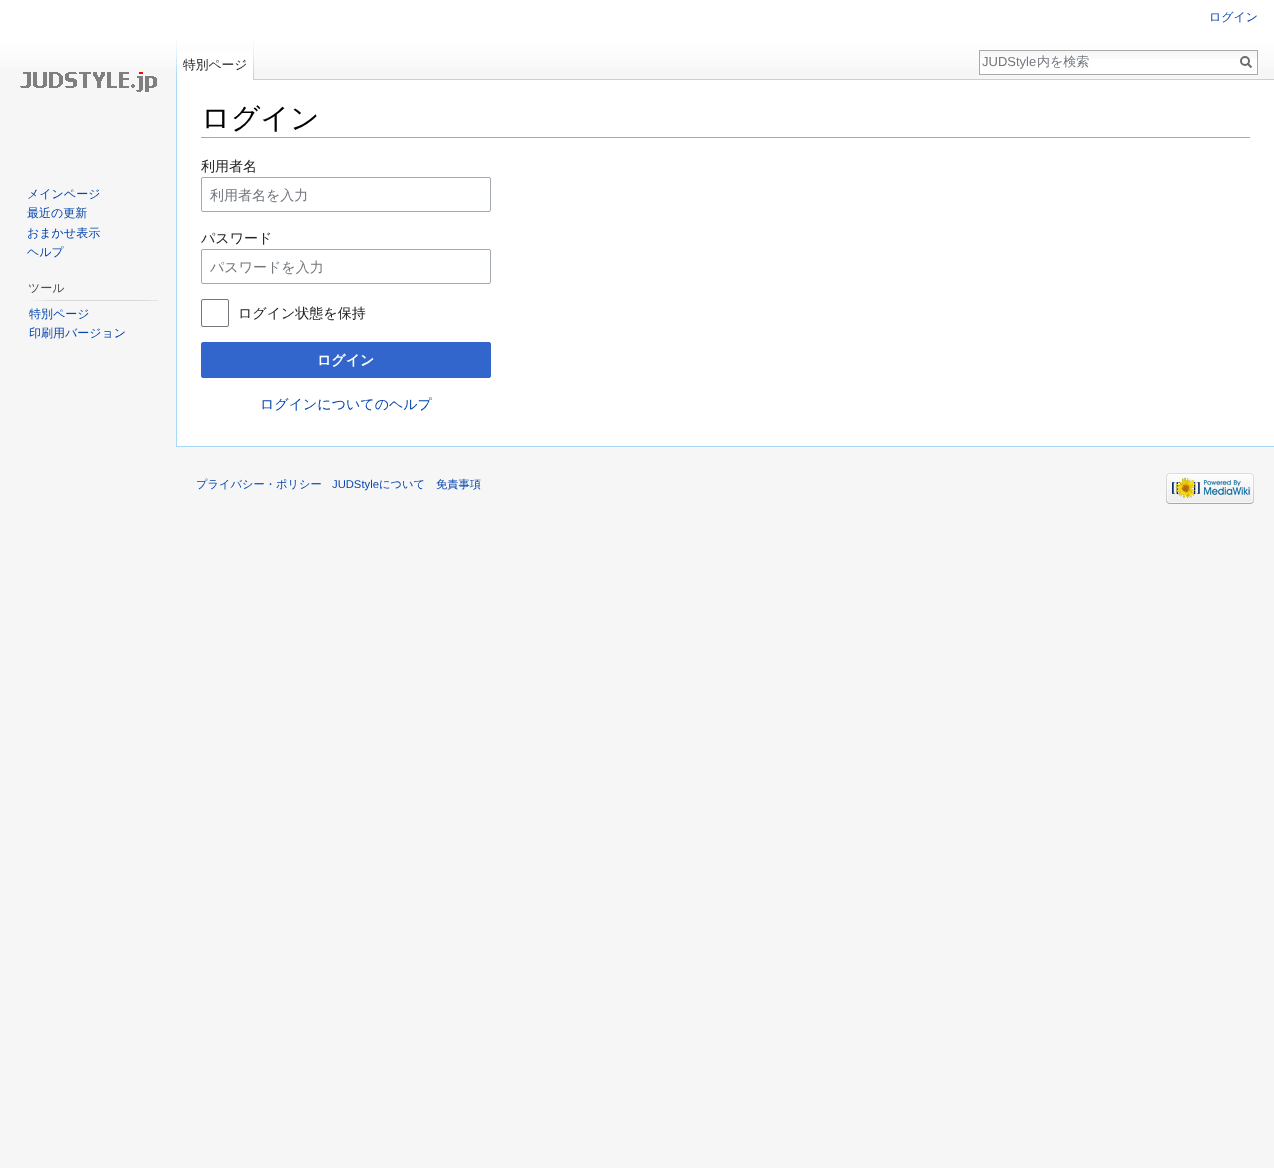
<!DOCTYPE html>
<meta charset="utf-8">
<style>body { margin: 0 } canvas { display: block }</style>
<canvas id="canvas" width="1274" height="1168"></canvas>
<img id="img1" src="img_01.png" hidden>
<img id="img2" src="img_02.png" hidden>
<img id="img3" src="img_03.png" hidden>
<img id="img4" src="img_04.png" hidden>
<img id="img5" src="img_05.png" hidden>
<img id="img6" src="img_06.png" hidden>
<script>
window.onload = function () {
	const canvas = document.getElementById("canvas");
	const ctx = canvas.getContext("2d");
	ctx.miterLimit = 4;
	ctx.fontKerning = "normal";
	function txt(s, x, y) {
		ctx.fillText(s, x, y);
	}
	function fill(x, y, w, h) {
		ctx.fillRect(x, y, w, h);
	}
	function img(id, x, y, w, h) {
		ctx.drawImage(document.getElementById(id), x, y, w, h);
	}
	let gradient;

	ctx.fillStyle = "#F6F6F6";
	fill(0, 0, 1274, 1168);
	gradient = ctx.createLinearGradient(637, 0, 637, 80);
	gradient.addColorStop(0.5, "#FFFFFF");
	gradient.addColorStop(1, "#F6F6F6");
	ctx.fillStyle = gradient;
	fill(0, 0, 1274, 69);
	img("img1", 176, 40, 1, 39);
	ctx.fillStyle = "#FFFFFF";
	fill(177, 51, 76, 29);
	img("img2", 253, 40, 1, 40);
	fill(980, 59, 277, 15);
	img("img3", 980, 51, 277, 8);
	ctx.strokeStyle = "#AAAAAA";
	ctx.strokeRect(979.5, 50.5, 278, 24);
	ctx.beginPath();
	ctx.moveTo(1251.5, 67.5);
	ctx.lineTo(1247.5, 63.5);
	ctx.strokeStyle = "#6C6C6C";
	ctx.lineWidth = 2;
	ctx.stroke();
	ctx.beginPath();
	ctx.arc(1245, 61, 4, 0, Math.PI * 2);
	ctx.stroke();
	img("img4", 20, 72, 137, 20);
	img("img5", 32, 300, 126, 1);
	fill(177, 80, 1097, 366);
	ctx.fillStyle = "#A7D7F9";
	fill(254, 79, 1020, 1);
	fill(176, 446, 1098, 1);
	fill(176, 79, 1, 368);
	ctx.fillStyle = "#A2A9B1";
	fill(201, 137, 1049, 1);
	ctx.beginPath();
	ctx.roundRect(201.5, 177.5, 289, 34, 1.5);
	ctx.strokeStyle = "#A2A9B1";
	ctx.lineWidth = 1;
	ctx.stroke();
	ctx.beginPath();
	ctx.roundRect(201.5, 249.5, 289, 34, 1.5);
	ctx.stroke();
	ctx.beginPath();
	ctx.roundRect(201.5, 299.5, 27, 27, 1.5);
	ctx.strokeStyle = "#72777D";
	ctx.stroke();
	ctx.fillStyle = "#3366CC";
	ctx.beginPath();
	ctx.roundRect(201.5, 342.5, 289, 35, 1.5);
	ctx.fill();
	ctx.strokeStyle = "#3366CC";
	ctx.stroke();
	img("img6", 1166, 473, 88, 31);
	ctx.font = "500 12px WenQuanYi Zen Hei";
	ctx.fillStyle = "#0645AD";
	txt("ログイン", 1209, 21);
	ctx.font = "500 12.75px WenQuanYi Zen Hei";
	ctx.fillStyle = "#222222";
	txt("特別ページ", 183, 69);
	ctx.font = "13px Liberation Sans";
	ctx.fillStyle = "#72777D";
	txt("JUDStyle", 982, 66);
	ctx.font = "500 13px WenQuanYi Zen Hei";
	txt("内を検索", 1037, 66);
	ctx.font = "500 12px WenQuanYi Zen Hei";
	ctx.fillStyle = "#0645AD";
	txt("メインページ", 27, 198);
	txt("最近の更新", 27, 217);
	txt("おまかせ表示", 27, 237);
	txt("ヘルプ", 27, 256);
	ctx.fillStyle = "#4D4D4D";
	txt("ツール", 28, 292);
	ctx.fillStyle = "#0645AD";
	txt("特別ページ", 29, 318);
	txt("印刷用バージョン", 29, 337);
	ctx.font = "500 29px WenQuanYi Zen Hei";
	ctx.fillStyle = "#000000";
	txt("ログイン", 201, 128);
	ctx.font = "500 14px WenQuanYi Zen Hei";
	ctx.fillStyle = "#222222";
	txt("利用者名", 201, 171);
	ctx.fillStyle = "#72777D";
	txt("利用者名を入力", 210, 200);
	ctx.fillStyle = "#222222";
	txt("パスワード", 201, 243);
	ctx.fillStyle = "#72777D";
	txt("パスワードを入力", 210, 272);
	ctx.fillStyle = "#222222";
	txt("ログイン状態を保持", 238, 318);
	ctx.font = "bold 14px WenQuanYi Zen Hei";
	ctx.fillStyle = "#FFFFFF";
	txt("ログイン", 317, 365);
	ctx.font = "500 14px WenQuanYi Zen Hei";
	ctx.fillStyle = "#0645AD";
	txt("ログインについてのヘルプ", 260, 409);
	ctx.font = "500 11.25px WenQuanYi Zen Hei";
	txt("プライバシー・ポリシー", 196, 488);
	ctx.font = "11.25px Liberation Sans";
	txt("JUDStyle", 332, 488);
	ctx.font = "500 11.25px WenQuanYi Zen Hei";
	txt("について", 379, 488);
	txt("免責事項", 436, 488);
};
</script>
